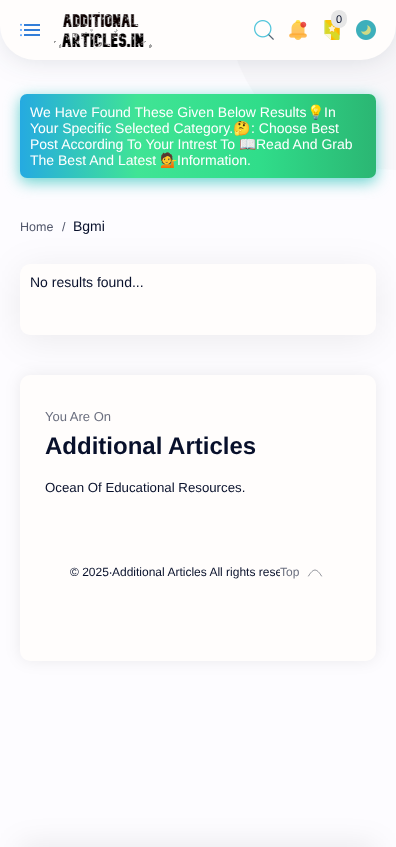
<!DOCTYPE html>
<meta charset="utf-8">
<style>body { margin: 0 } canvas { display: block }</style>
<canvas id="canvas" width="396" height="847"></canvas>
<img id="img1" src="img_01.png" hidden>
<img id="img2" src="img_02.png" hidden>
<img id="img3" src="img_03.png" hidden>
<img id="img4" src="img_04.png" hidden>
<img id="img5" src="img_05.png" hidden>
<img id="img6" src="img_06.png" hidden>
<img id="img7" src="img_07.png" hidden>
<script>
window.onload = function () {
	const canvas = document.getElementById("canvas");
	const ctx = canvas.getContext("2d");
	ctx.miterLimit = 4;
	ctx.fontKerning = "normal";
	function txt(s, x, y) {
		ctx.fillText(s, x, y);
	}
	function fill(x, y, w, h) {
		ctx.fillRect(x, y, w, h);
	}
	function round(x, y, w, h, r) {
		ctx.beginPath();
		ctx.roundRect(x, y, w, h, r);
		ctx.fill();
	}
	function img(id, x, y, w, h) {
		ctx.drawImage(document.getElementById(id), x, y, w, h);
	}
	let gradient;

	ctx.fillStyle = "#FDFCFF";
	fill(0, 0, 396, 847);
	ctx.fillStyle = "#F8F7FA";
	ctx.beginPath();
	ctx.roundRect(226, 0, 170, 170, [0, 0, 0, 170]);
	ctx.fill();
	ctx.fillStyle = "rgba(49, 196, 190, 0.75)";
	ctx.filter = "blur(7.5px)";
	ctx.beginPath();
	ctx.roundRect(20, 98, 356, 84, 7);
	ctx.fill();
	ctx.filter = "none";
	gradient = ctx.createLinearGradient(20, 136, 376, 136);
	gradient.addColorStop(0, "#25AAE1");
	gradient.addColorStop(0.33, "#40E495");
	gradient.addColorStop(0.67, "#30DD8A");
	gradient.addColorStop(1, "#2BB673");
	ctx.fillStyle = gradient;
	round(20, 94, 356, 84, 7);
	ctx.fillStyle = "rgba(23, 43, 61, 0.2)";
	ctx.filter = "blur(16px)";
	ctx.beginPath();
	ctx.roundRect(8, 10, 380, 44, 27);
	ctx.fill();
	ctx.filter = "none";
	ctx.fillStyle = "#FFFDFC";
	ctx.beginPath();
	ctx.roundRect(0, 0, 396, 60, [0, 0, 35, 35]);
	ctx.fill();
	img("img1", 20, 23, 20, 14);
	img("img2", 54, 12, 98, 37);
	img("img3", 60, 13, 85, 35);
	img("img4", 254, 20, 20, 20);
	img("img5", 289, 20, 18, 20);
	img("img6", 324, 20, 16, 20);
	ctx.fillStyle = "#E6E6E6";
	round(331, 10, 16, 18, 8);
	img("img7", 356, 20, 20, 20);
	ctx.fillStyle = "rgba(0, 0, 0, 0.07)";
	ctx.filter = "blur(7.5px)";
	ctx.beginPath();
	ctx.roundRect(20, 375, 356, 286, 10);
	ctx.fill();
	ctx.filter = "none";
	ctx.fillStyle = "#FFFDFC";
	round(20, 375, 356, 286, 10);
	ctx.fillStyle = "rgba(0, 0, 0, 0.07)";
	ctx.filter = "blur(17.5px)";
	ctx.beginPath();
	ctx.roundRect(20, 269, 356, 71, 10);
	ctx.fill();
	ctx.filter = "none";
	ctx.fillStyle = "#FFFDFC";
	round(20, 264, 356, 71, 10);
	ctx.beginPath();
	ctx.moveTo(308.5, 576);
	ctx.bezierCurveTo(313.5, 568, 316.5, 568, 321.5, 576);
	ctx.strokeStyle = "#7D8089";
	ctx.lineWidth = 0.9;
	ctx.lineCap = "round";
	ctx.lineJoin = "round";
	ctx.stroke();
	ctx.fillStyle = "rgba(0, 0, 0, 0.1)";
	ctx.filter = "blur(15px)";
	ctx.beginPath();
	ctx.rect(20, 847, 356, 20);
	ctx.fill();
	ctx.filter = "none";
	ctx.font = "11px Liberation Sans";
	ctx.fillStyle = "#08102B";
	txt("0", 336, 23);
	ctx.font = "14px Liberation Sans";
	ctx.fillStyle = "#FFFFFF";
	txt("We Have Found These Given Below Results", 30, 117);
	ctx.font = "14px Noto Color Emoji";
	txt("💡", 307, 117);
	ctx.font = "14px Liberation Sans";
	txt("In", 324, 117);
	txt("Your Specific Selected Category.", 30, 133);
	ctx.font = "14px Noto Color Emoji";
	txt("🤔", 233, 133);
	ctx.font = "14px Liberation Sans";
	txt(": Choose Best", 251, 133);
	txt("Post According To Your Intrest To", 30, 149);
	ctx.font = "14px Noto Color Emoji";
	txt("📖", 239, 149);
	ctx.font = "14px Liberation Sans";
	txt("Read And Grab", 256, 149);
	txt("The Best And Latest", 30, 165);
	ctx.font = "14px Noto Color Emoji";
	txt("💁", 160, 165);
	ctx.font = "14px Liberation Sans";
	txt("Information.", 177, 165);
	ctx.font = "12.5px Liberation Sans";
	ctx.fillStyle = "#52576B";
	txt("Home", 20, 231);
	txt("/", 62, 231);
	ctx.font = "14px Liberation Sans";
	ctx.fillStyle = "#08102B";
	txt("Bgmi", 73, 231);
	txt("No results found...", 30, 287);
	ctx.font = "13px Liberation Sans";
	ctx.fillStyle = "#6B6F7F";
	txt("You Are On", 45, 421);
	ctx.font = "bold 24px Liberation Sans";
	ctx.fillStyle = "#08102B";
	txt("Additional Articles", 45, 454);
	ctx.font = "13.25px Liberation Sans";
	txt("Ocean Of Educational Resources.", 45, 492);
	ctx.font = "12px Liberation Sans";
	txt("© 2025", 70, 576);
	ctx.font = "12px Noto Sans";
	txt("‧", 109, 576);
	ctx.save();
	ctx.beginPath();
	ctx.rect(70, 561, 210, 24);
	ctx.clip();
	ctx.font = "12px Liberation Sans";
	txt("Additional Articles All rights rese", 112, 576);
	ctx.restore();
	ctx.font = "12px Liberation Sans";
	ctx.fillStyle = "#6B6F7F";
	txt("Top", 280, 576);
};
</script>
